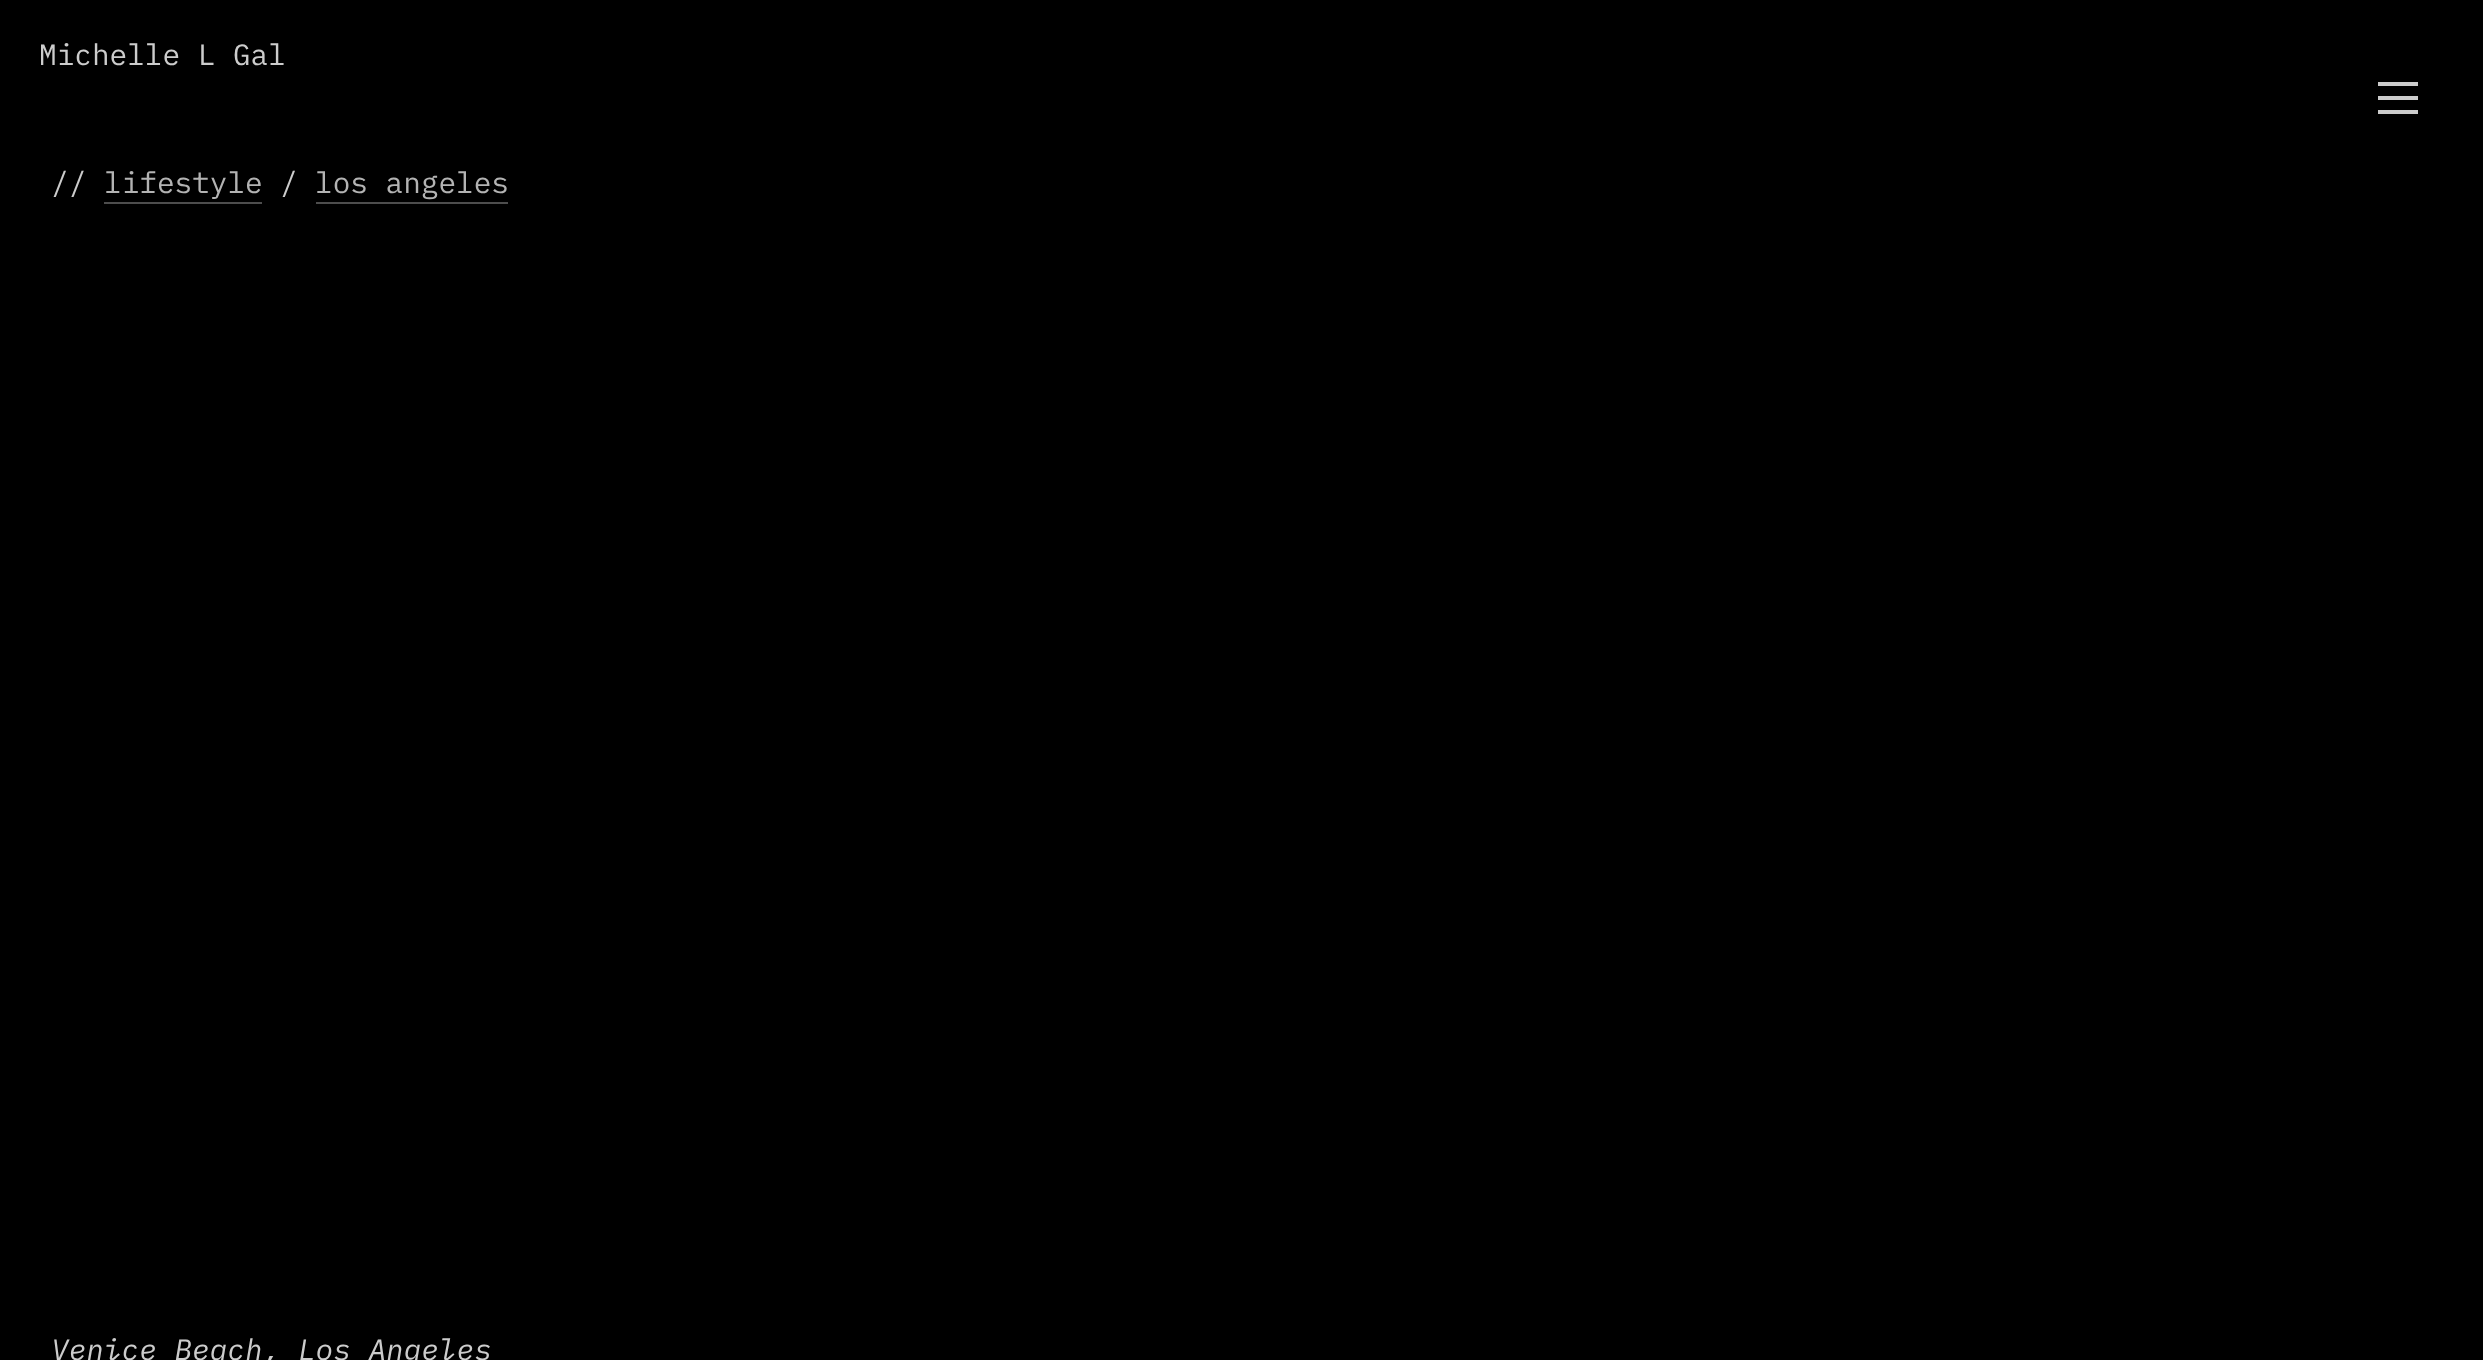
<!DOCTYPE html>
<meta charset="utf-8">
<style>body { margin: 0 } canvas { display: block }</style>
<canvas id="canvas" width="2483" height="1360"></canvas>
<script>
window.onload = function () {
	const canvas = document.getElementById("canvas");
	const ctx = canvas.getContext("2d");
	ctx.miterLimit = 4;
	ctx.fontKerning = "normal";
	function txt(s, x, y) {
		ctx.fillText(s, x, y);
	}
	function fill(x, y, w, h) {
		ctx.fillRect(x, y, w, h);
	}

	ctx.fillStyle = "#000000";
	fill(0, 0, 2483, 1360);
	ctx.fillStyle = "#4D4D4D";
	fill(104, 202, 158, 2);
	fill(316, 202, 192, 2);
	ctx.fillStyle = "#CCCCCC";
	ctx.beginPath();
	ctx.moveTo(2418, 82);
	ctx.lineTo(2418, 86);
	ctx.lineTo(2378, 86);
	ctx.lineTo(2378, 82);
	ctx.closePath();
	ctx.moveTo(2418, 96);
	ctx.lineTo(2418, 100);
	ctx.lineTo(2378, 100);
	ctx.lineTo(2378, 96);
	ctx.closePath();
	ctx.moveTo(2418, 110);
	ctx.lineTo(2418, 114);
	ctx.lineTo(2378, 114);
	ctx.lineTo(2378, 110);
	ctx.closePath();
	ctx.fill();
	ctx.font = "29.4px IBM Plex Mono";
	txt("Michelle L Gal", 39, 65);
	txt("//", 51, 193);
	ctx.fillStyle = "#B3B3B3";
	txt("lifestyle", 104, 193);
	ctx.fillStyle = "#CCCCCC";
	txt("/", 280, 193);
	ctx.fillStyle = "#B3B3B3";
	txt("los angeles", 315, 193);
	ctx.font = "italic 29.4px IBM Plex Mono";
	ctx.fillStyle = "#CCCCCC";
	txt("Venice Beach, Los Angeles", 51, 1360);
};
</script>
